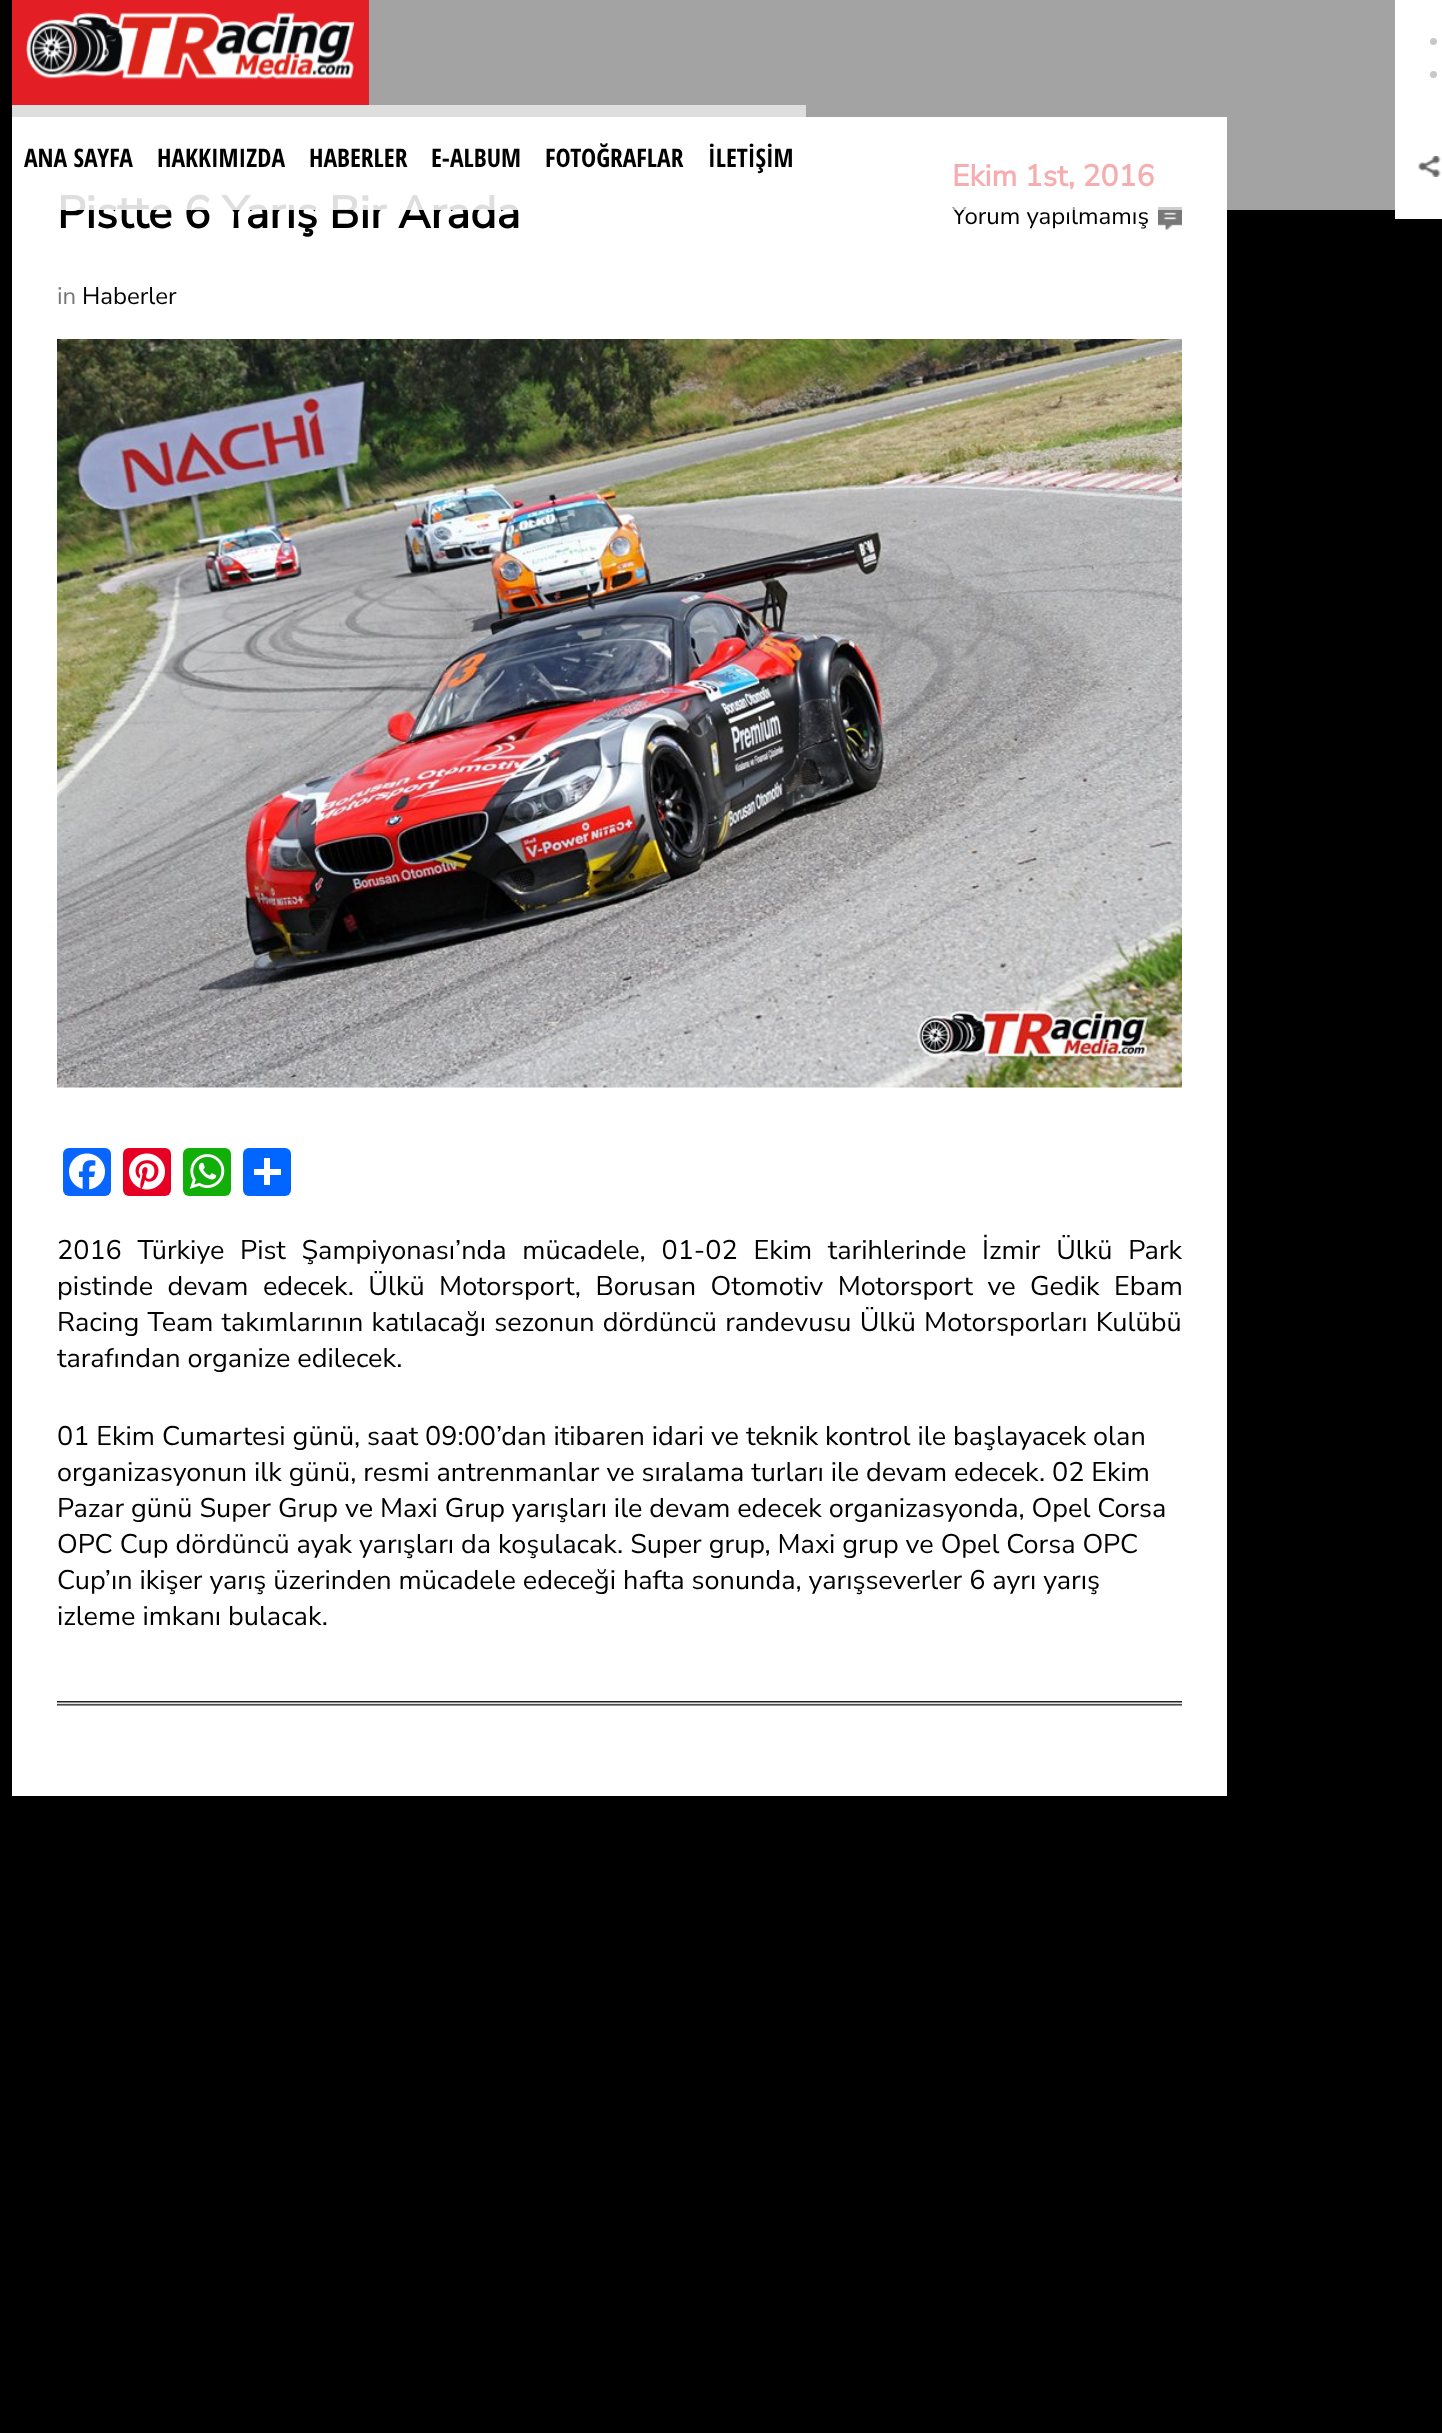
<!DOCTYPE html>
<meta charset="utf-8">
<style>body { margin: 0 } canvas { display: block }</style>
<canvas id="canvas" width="1442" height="2433"></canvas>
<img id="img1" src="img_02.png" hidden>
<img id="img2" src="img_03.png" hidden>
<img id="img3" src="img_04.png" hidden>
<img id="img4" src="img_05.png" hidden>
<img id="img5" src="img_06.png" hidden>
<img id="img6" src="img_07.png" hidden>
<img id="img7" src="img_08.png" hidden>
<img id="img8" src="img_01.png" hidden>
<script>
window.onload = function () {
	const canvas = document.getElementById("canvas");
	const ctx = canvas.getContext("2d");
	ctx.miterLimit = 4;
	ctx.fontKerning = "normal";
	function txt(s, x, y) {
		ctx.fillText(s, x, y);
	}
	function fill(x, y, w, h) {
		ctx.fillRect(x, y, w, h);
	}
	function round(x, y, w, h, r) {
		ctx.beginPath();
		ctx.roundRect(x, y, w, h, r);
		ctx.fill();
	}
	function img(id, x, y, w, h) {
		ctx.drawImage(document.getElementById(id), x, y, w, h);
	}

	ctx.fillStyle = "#000000";
	fill(0, 0, 1442, 2433);
	ctx.fillStyle = "#FFFFFF";
	fill(1395, 0, 47, 219);
	ctx.fillStyle = "#C8C8C8";
	ctx.beginPath();
	ctx.arc(1433.5, 41.5, 3.5, 0, Math.PI * 2);
	ctx.fill();
	ctx.beginPath();
	ctx.arc(1433.5, 74.5, 3.5, 0, Math.PI * 2);
	ctx.fill();
	img("img1", 1418, 156, 23, 21);
	ctx.fillStyle = "#FFFFFF";
	fill(12, 117, 1215, 1679);
	img("img2", 1158, 207, 24, 23);
	img("img3", 57, 339, 1125, 749);
	img("img4", 57, 1701, 1125, 5);
	ctx.fillStyle = "#0866FF";
	round(63, 1148, 48, 48, 6);
	img("img5", 69, 1153, 36, 37);
	ctx.fillStyle = "#E60023";
	round(123, 1148, 48, 48, 6);
	img("img6", 129, 1153, 36, 37);
	ctx.fillStyle = "#12AF0A";
	round(183, 1148, 48, 48, 6);
	img("img7", 189, 1154, 36, 35);
	ctx.fillStyle = "#0166FF";
	round(243, 1148, 48, 48, 6);
	ctx.fillStyle = "#FFFFFF";
	fill(264, 1158, 6, 27);
	fill(254, 1169, 27, 6);
	ctx.font = "bold 45px Nunito Sans";
	ctx.fillStyle = "#000000";
	txt("Pistte 6 Yarış Bir Arada", 57, 228);
	ctx.font = "200 24px Nunito Sans";
	ctx.fillStyle = "#787878";
	txt("in", 57, 304);
	ctx.fillStyle = "#000000";
	txt("Haberler", 82, 304);
	ctx.font = "bold 30px Nunito Sans";
	ctx.fillStyle = "#E31E24";
	txt("Ekim 1st, 2016", 952, 186);
	ctx.font = "200 24px Nunito Sans";
	ctx.fillStyle = "#000000";
	txt("Yorum yapılmamış", 952, 224);
	ctx.fillStyle = "rgba(255, 255, 255, 0.64)";
	fill(12, 0, 1383, 210);
	ctx.fillStyle = "#E31E24";
	fill(12, 0, 357, 105);
	img("img8", 26, 12, 329, 68);
	ctx.fillStyle = "rgba(255, 255, 255, 0.64)";
	fill(12, 105, 794, 105);
	ctx.font = "bold 25.5px Open Sans Condensed";
	ctx.fillStyle = "#000000";
	txt("İLETİŞİM", 708, 167);
	txt("FOTOĞRAFLAR", 545, 167);
	txt("E-ALBUM", 431, 167);
	txt("HABERLER", 309, 167);
	txt("HAKKIMIZDA", 157, 167);
	txt("ANA SAYFA", 24, 167);
	ctx.wordSpacing = "8.75px";
	ctx.font = "200 27px Nunito Sans";
	txt("2016 Türkiye Pist Şampiyonası’nda mücadele, 01-02 Ekim tarihlerinde İzmir Ülkü Park", 57, 1259);
	ctx.wordSpacing = "7.5px";
	txt("pistinde devam edecek. Ülkü Motorsport, Borusan Otomotiv Motorsport ve Gedik Ebam", 57, 1295);
	ctx.wordSpacing = "1.25px";
	txt("Racing Team takımlarının katılacağı sezonun dördüncü randevusu Ülkü Motorsporları Kulübü", 57, 1331);
	ctx.wordSpacing = "0px";
	txt("tarafından organize edilecek.", 57, 1367);
	txt("01 Ekim Cumartesi günü, saat 09:00’dan itibaren idari ve teknik kontrol ile başlayacek olan", 57, 1445);
	txt("organizasyonun ilk günü, resmi antrenmanlar ve sıralama turları ile devam edecek. 02 Ekim", 57, 1481);
	txt("Pazar günü Super Grup ve Maxi Grup yarışları ile devam edecek organizasyonda, Opel Corsa", 57, 1517);
	txt("OPC Cup dördüncü ayak yarışları da koşulacak. Super grup, Maxi grup ve Opel Corsa OPC", 57, 1553);
	txt("Cup’ın ikişer yarış üzerinden mücadele edeceği hafta sonunda, yarışseverler 6 ayrı yarış", 57, 1589);
	txt("izleme imkanı bulacak.", 57, 1625);
};
</script>
